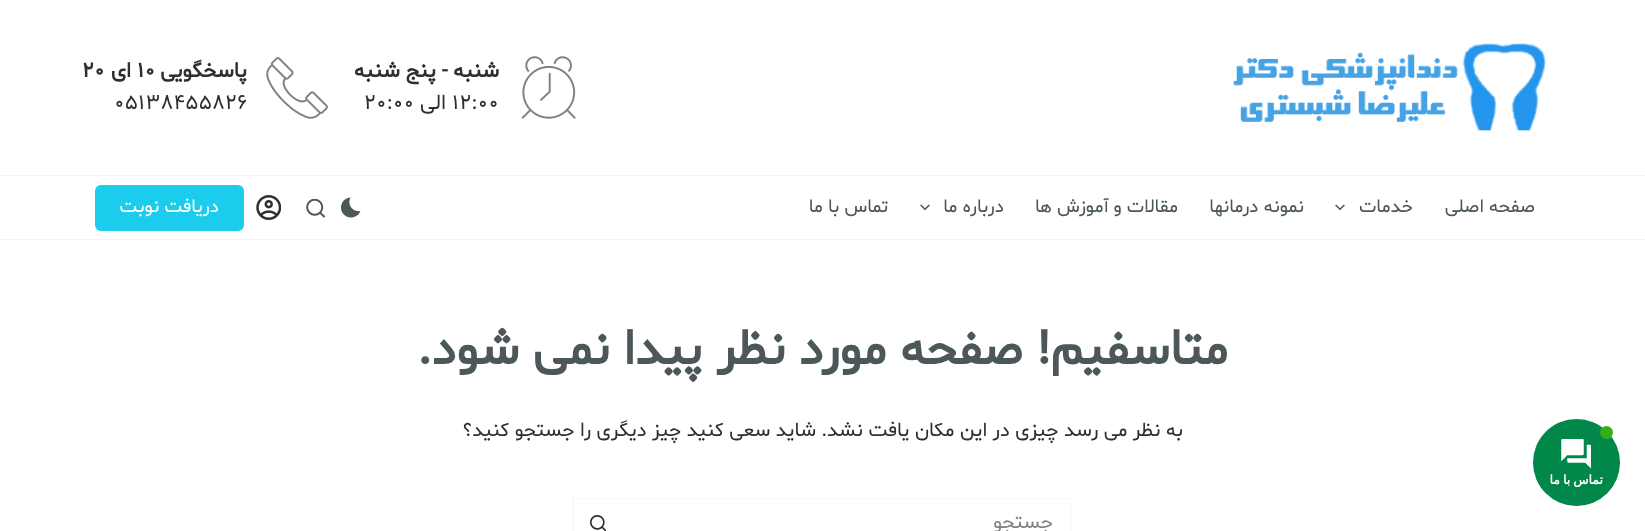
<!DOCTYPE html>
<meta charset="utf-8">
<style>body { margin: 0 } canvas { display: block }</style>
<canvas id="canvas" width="1645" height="531"></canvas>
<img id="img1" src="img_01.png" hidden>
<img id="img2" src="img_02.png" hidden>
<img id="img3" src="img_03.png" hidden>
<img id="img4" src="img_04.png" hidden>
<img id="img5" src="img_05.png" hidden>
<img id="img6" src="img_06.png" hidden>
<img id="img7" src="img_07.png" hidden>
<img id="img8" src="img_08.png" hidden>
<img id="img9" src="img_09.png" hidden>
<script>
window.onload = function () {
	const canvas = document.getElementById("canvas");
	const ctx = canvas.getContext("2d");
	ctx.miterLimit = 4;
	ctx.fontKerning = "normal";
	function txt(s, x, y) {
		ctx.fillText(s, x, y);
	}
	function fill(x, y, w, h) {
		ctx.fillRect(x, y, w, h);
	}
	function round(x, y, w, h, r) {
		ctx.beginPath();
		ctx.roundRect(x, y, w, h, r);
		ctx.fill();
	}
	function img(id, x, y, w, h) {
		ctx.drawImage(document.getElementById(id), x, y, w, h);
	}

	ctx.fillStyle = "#FFFFFF";
	fill(0, 0, 1645, 531);
	ctx.fillStyle = "#008749";
	ctx.beginPath();
	ctx.arc(1576.5, 462.5, 43.5, 0, Math.PI * 2);
	ctx.fill();
	ctx.fillStyle = "#35AC19";
	ctx.beginPath();
	ctx.arc(1606.5, 432.5, 6.5, 0, Math.PI * 2);
	ctx.fill();
	img("img1", 1561, 439, 30, 30);
	img("img2", 1233, 43, 313, 88);
	img("img3", 521, 56, 55, 63);
	img("img4", 266, 57, 62, 62);
	ctx.fillStyle = "#F5F5F5";
	fill(0, 175, 1645, 1);
	fill(0, 239, 1645, 1);
	img("img5", 1335, 204, 10, 7);
	img("img5", 920, 204, 10, 7);
	img("img6", 341, 197, 20, 21);
	img("img7", 306, 199, 19, 19);
	img("img8", 256, 195, 25, 25);
	ctx.fillStyle = "#1BCCEC";
	round(95, 185, 149, 46, 6);
	ctx.fillStyle = "#F8F8F8";
	ctx.beginPath();
	ctx.moveTo(622, 498);
	ctx.lineTo(1069, 498);
	ctx.bezierCurveTo(1071, 498, 1072, 499, 1072, 501);
	ctx.lineTo(1072, 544);
	ctx.bezierCurveTo(1072, 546, 1071, 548, 1069, 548);
	ctx.lineTo(622, 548);
	ctx.closePath();
	ctx.moveTo(622, 499);
	ctx.lineTo(1069, 499);
	ctx.bezierCurveTo(1070, 499, 1071, 500, 1071, 501);
	ctx.lineTo(1071, 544);
	ctx.bezierCurveTo(1071, 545, 1070, 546, 1069, 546);
	ctx.lineTo(622, 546);
	ctx.closePath();
	ctx.fill("evenodd");
	ctx.beginPath();
	ctx.moveTo(576, 498);
	ctx.lineTo(622, 498);
	ctx.lineTo(622, 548);
	ctx.lineTo(576, 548);
	ctx.bezierCurveTo(574, 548, 572, 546, 572, 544);
	ctx.lineTo(572, 501);
	ctx.bezierCurveTo(572, 499, 574, 498, 576, 498);
	ctx.closePath();
	ctx.moveTo(576, 499);
	ctx.lineTo(622, 499);
	ctx.lineTo(622, 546);
	ctx.lineTo(576, 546);
	ctx.bezierCurveTo(575, 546, 574, 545, 574, 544);
	ctx.lineTo(574, 501);
	ctx.bezierCurveTo(574, 500, 575, 499, 576, 499);
	ctx.closePath();
	ctx.fill("evenodd");
	img("img9", 590, 515, 16, 16);
	ctx.wordSpacing = "-1px";
	ctx.direction = "rtl";
	ctx.font = "bold 12.5px DejaVu Sans";
	ctx.fillStyle = "#FFFFFF";
	txt("تماس با ما", 1603, 484);
	ctx.wordSpacing = "0px";
	ctx.font = "bold 21.25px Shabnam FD";
	ctx.fillStyle = "#2F2F2F";
	txt("شنبه - پنج شنبه", 499, 77);
	ctx.direction = "ltr";
	ctx.font = "21.25px Shabnam FD";
	txt("12:00", 452, 109);
	ctx.direction = "rtl";
	txt("الی", 446, 109);
	ctx.direction = "ltr";
	txt("20:00", 364, 109);
	ctx.direction = "rtl";
	ctx.font = "bold 21.25px Shabnam FD";
	txt("پاسخگویی", 247, 77);
	ctx.direction = "ltr";
	txt("10", 137, 77);
	ctx.direction = "rtl";
	txt("ای", 131, 77);
	ctx.direction = "ltr";
	txt("20", 82, 77);
	ctx.font = "21.25px Shabnam FD";
	txt("05138455826", 114, 109);
	ctx.direction = "rtl";
	ctx.font = "18.75px Shabnam FD";
	ctx.fillStyle = "#4C5759";
	txt("صفحه اصلی", 1535, 212);
	txt("خدمات", 1413, 212);
	txt("نمونه درمانها", 1304, 212);
	txt("مقالات و آموزش ها", 1178, 212);
	txt("درباره ما", 1004, 212);
	txt("تماس با ما", 888, 212);
	ctx.fillStyle = "#FFFFFF";
	txt("دریافت نوبت", 219, 212);
	ctx.font = "bold 50px Shabnam FD";
	ctx.fillStyle = "#4C5759";
	txt("متاسفیم! صفحه مورد نظر پیدا نمی شود.", 1228, 364);
	ctx.font = "20px Shabnam FD";
	ctx.fillStyle = "#2F2F2F";
	txt("به نظر می رسد چیزی در این مکان یافت نشد. شاید سعی کنید چیز دیگری را جستجو کنید؟", 1183, 436);
	ctx.fillStyle = "#828282";
	txt("جستجو", 1053, 528);
};
</script>
